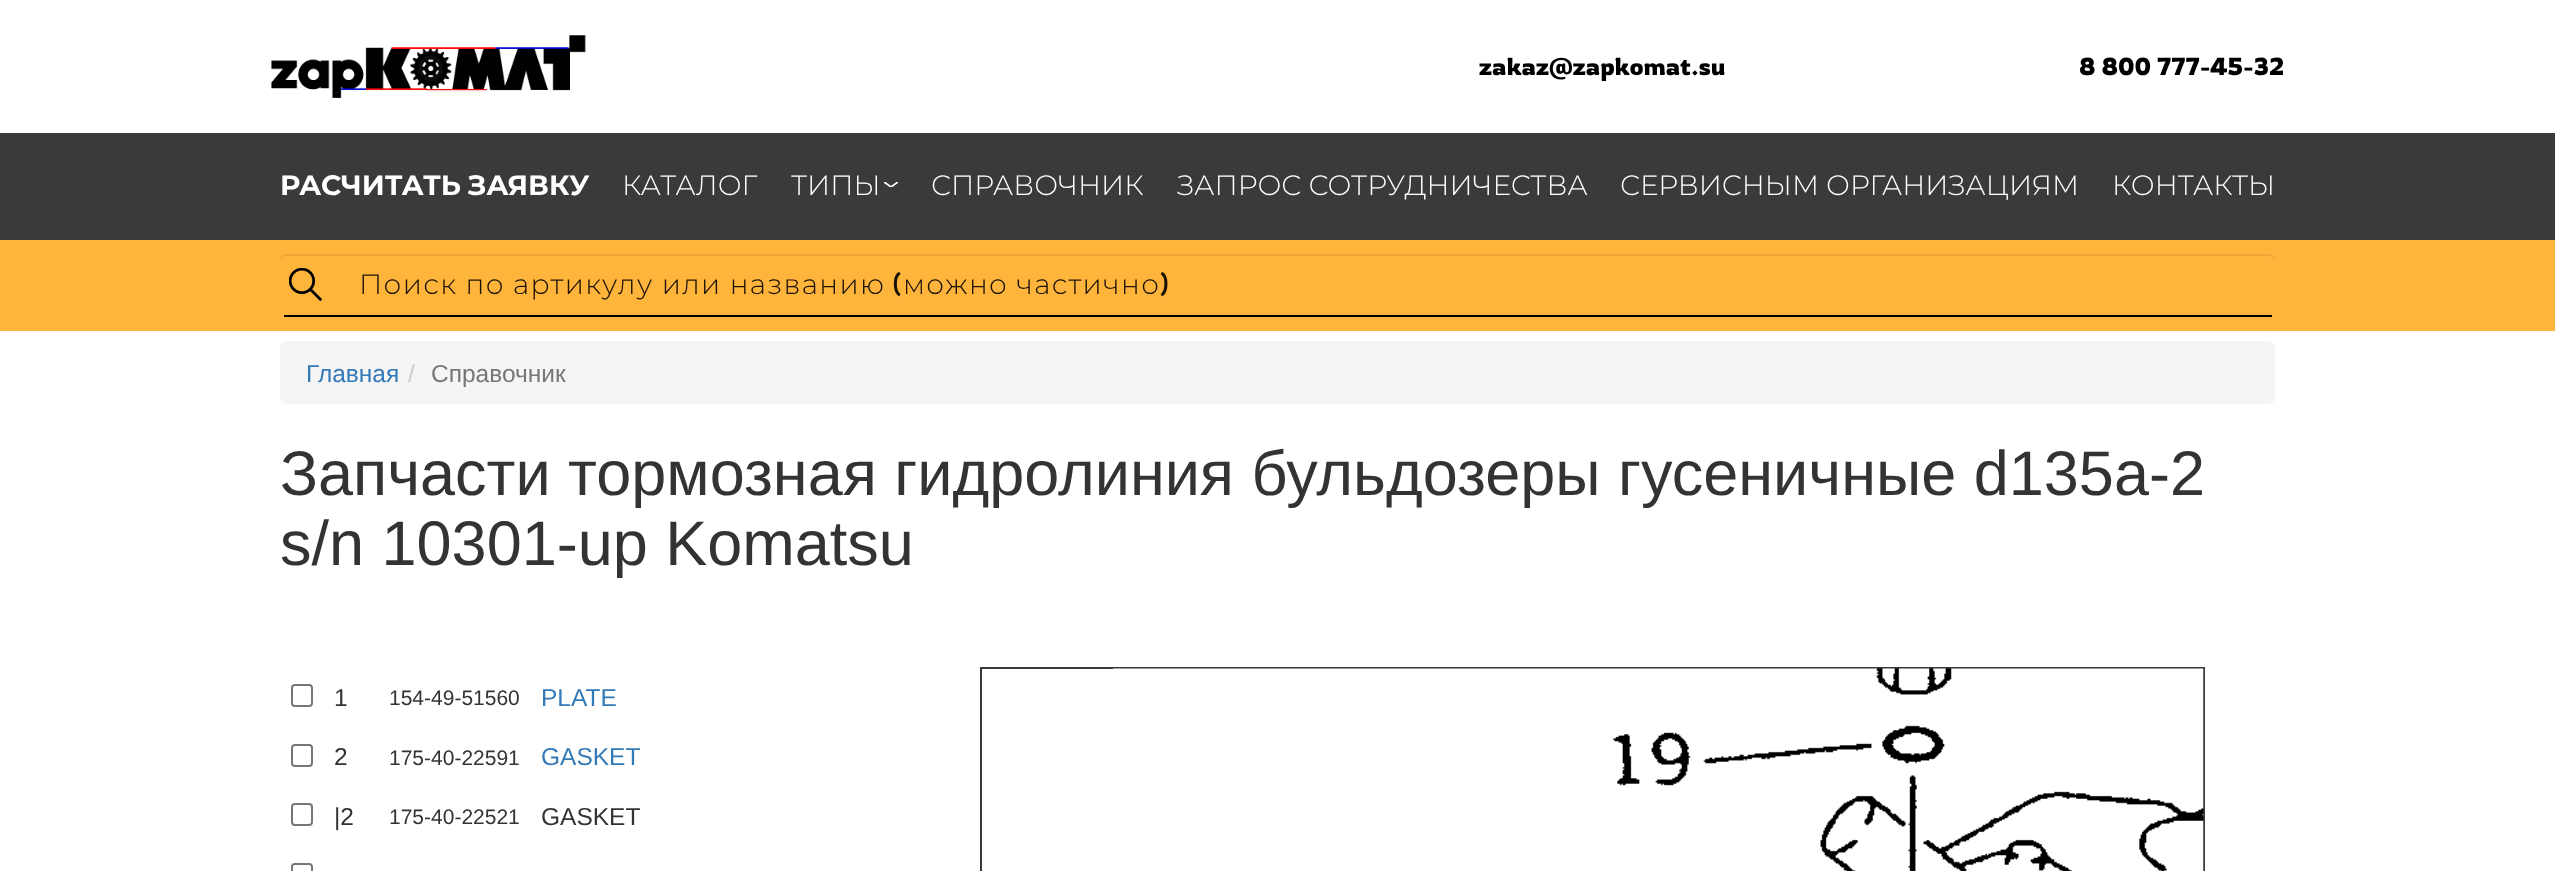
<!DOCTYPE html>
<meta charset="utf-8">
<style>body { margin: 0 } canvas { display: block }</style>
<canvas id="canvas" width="2555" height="871"></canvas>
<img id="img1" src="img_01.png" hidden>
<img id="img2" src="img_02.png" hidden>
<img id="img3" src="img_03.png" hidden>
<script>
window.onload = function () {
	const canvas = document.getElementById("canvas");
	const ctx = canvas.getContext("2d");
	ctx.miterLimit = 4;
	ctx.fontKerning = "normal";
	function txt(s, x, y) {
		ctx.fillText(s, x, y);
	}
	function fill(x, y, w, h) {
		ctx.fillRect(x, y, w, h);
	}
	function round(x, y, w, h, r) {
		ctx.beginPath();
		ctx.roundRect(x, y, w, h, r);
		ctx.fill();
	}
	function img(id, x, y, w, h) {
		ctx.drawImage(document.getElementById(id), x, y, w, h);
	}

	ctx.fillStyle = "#FFFFFF";
	fill(0, 0, 2555, 871);
	img("img1", 271, 35, 315, 63);
	ctx.fillStyle = "#3A3A3A";
	fill(0, 133, 2555, 107);
	ctx.save();
	ctx.beginPath();
	ctx.rect(884, 182, 14, 5);
	ctx.clip();
	ctx.beginPath();
	ctx.moveTo(884, 182);
	ctx.lineTo(891, 187);
	ctx.lineTo(898, 182);
	ctx.strokeStyle = "#FFFFFF";
	ctx.lineWidth = 1.8;
	ctx.stroke();
	ctx.restore();
	ctx.fillStyle = "#FFB43C";
	fill(0, 240, 2555, 91);
	img("img2", 289, 268, 33, 33);
	ctx.fillStyle = "#ECA738";
	ctx.beginPath();
	ctx.moveTo(287, 256);
	ctx.lineTo(2268, 256);
	ctx.bezierCurveTo(2272, 256, 2275, 259, 2275, 262);
	ctx.lineTo(2275, 261);
	ctx.bezierCurveTo(2275, 257, 2272, 254, 2268, 254);
	ctx.lineTo(287, 254);
	ctx.bezierCurveTo(283, 254, 280, 257, 280, 261);
	ctx.lineTo(280, 262);
	ctx.bezierCurveTo(280, 259, 283, 256, 287, 256);
	ctx.closePath();
	ctx.fill();
	ctx.fillStyle = "#000000";
	fill(284, 315, 1988, 2);
	ctx.fillStyle = "#F5F5F5";
	round(280, 341, 1995, 63, 7);
	ctx.beginPath();
	ctx.roundRect(292, 685, 20, 21, 3);
	ctx.strokeStyle = "#767676";
	ctx.lineWidth = 2;
	ctx.stroke();
	ctx.beginPath();
	ctx.roundRect(292, 745, 20, 21, 3);
	ctx.stroke();
	ctx.beginPath();
	ctx.roundRect(292, 804, 20, 21, 3);
	ctx.stroke();
	ctx.beginPath();
	ctx.roundRect(292, 864, 20, 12, 3);
	ctx.stroke();
	ctx.strokeStyle = "#393939";
	ctx.strokeRect(981, 668, 1223, 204);
	img("img3", 1113, 668, 1091, 203);
	ctx.font = "24.5px Rowdies";
	ctx.fillStyle = "#000000";
	txt("zakaz@zapkomat.su", 1479, 75);
	txt("8 800 777-45-32", 2079, 75);
	ctx.wordSpacing = "-1px";
	ctx.font = "bold 28px Montserrat";
	ctx.fillStyle = "#FFFFFF";
	txt("РАСЧИТАТЬ ЗАЯВКУ", 280, 195);
	ctx.wordSpacing = "0px";
	ctx.font = "300 28px Montserrat";
	txt("КАТАЛОГ", 622, 195);
	txt("ТИПЫ", 791, 195);
	txt("СПРАВОЧНИК", 931, 195);
	txt("ЗАПРОС СОТРУДНИЧЕСТВА", 1177, 195);
	txt("СЕРВИСНЫМ ОРГАНИЗАЦИЯМ", 1620, 195);
	txt("КОНТАКТЫ", 2112, 195);
	ctx.letterSpacing = "1.4px";
	ctx.wordSpacing = "-0.5px";
	ctx.fillStyle = "#1A1206";
	txt("Поиск по артикулу или названию", 359, 294);
	ctx.wordSpacing = "0px";
	ctx.font = "300 28px Rowdies";
	txt("(", 893, 294);
	ctx.wordSpacing = "-0.5px";
	ctx.font = "300 28px Montserrat";
	txt("можно частично", 903, 294);
	ctx.wordSpacing = "0px";
	ctx.font = "300 28px Rowdies";
	txt(")", 1160, 294);
	ctx.letterSpacing = "0px";
	ctx.font = "24.5px Liberation Sans";
	ctx.fillStyle = "#337AB7";
	txt("Главная", 306, 382);
	ctx.fillStyle = "#CCCCCC";
	txt("/", 408, 382);
	ctx.fillStyle = "#777777";
	txt("Справочник", 431, 382);
	ctx.font = "63px Liberation Sans";
	ctx.fillStyle = "#333333";
	txt("Запчасти тормозная гидролиния бульдозеры гусеничные d135a-2", 280, 495);
	txt("s/n 10301-up Komatsu", 280, 565);
	ctx.font = "24.5px Liberation Sans";
	txt("1", 334, 706);
	ctx.font = "21px Liberation Sans";
	txt("154-49-51560", 389, 705);
	ctx.font = "24.5px Liberation Sans";
	ctx.fillStyle = "#337AB7";
	txt("PLATE", 541, 706);
	ctx.fillStyle = "#333333";
	txt("2", 334, 765);
	ctx.font = "21px Liberation Sans";
	txt("175-40-22591", 389, 765);
	ctx.font = "24.5px Liberation Sans";
	ctx.fillStyle = "#337AB7";
	txt("GASKET", 541, 765);
	ctx.fillStyle = "#333333";
	txt("|2", 334, 825);
	ctx.font = "21px Liberation Sans";
	txt("175-40-22521", 389, 824);
	ctx.font = "24.5px Liberation Sans";
	txt("GASKET", 541, 825);
};
</script>
